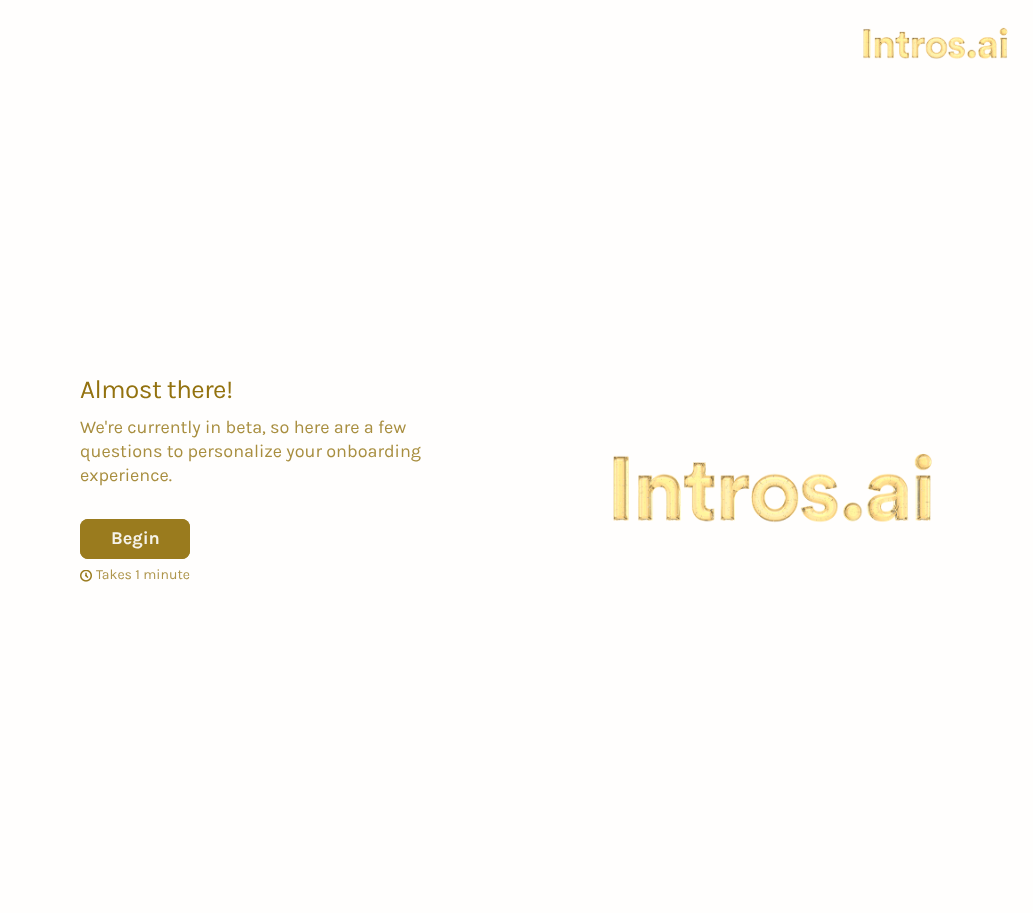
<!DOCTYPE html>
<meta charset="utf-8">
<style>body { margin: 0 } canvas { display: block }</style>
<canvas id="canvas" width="1033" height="913"></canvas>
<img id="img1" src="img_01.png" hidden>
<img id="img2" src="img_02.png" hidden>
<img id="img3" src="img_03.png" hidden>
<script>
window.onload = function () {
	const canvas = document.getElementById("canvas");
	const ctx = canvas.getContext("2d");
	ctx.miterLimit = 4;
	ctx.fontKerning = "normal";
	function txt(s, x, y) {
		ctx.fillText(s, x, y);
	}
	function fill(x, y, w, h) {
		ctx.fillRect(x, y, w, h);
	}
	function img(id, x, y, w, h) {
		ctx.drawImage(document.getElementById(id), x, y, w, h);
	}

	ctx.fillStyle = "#FFFEFD";
	fill(0, 0, 1033, 913);
	img("img1", 863, 27, 145, 32);
	ctx.beginPath();
	ctx.roundRect(80.5, 519.5, 109, 39, 7.5);
	ctx.strokeStyle = "#9A7B1E";
	ctx.stroke();
	ctx.fillStyle = "#9A7B1E";
	ctx.filter = "blur(0.5px)";
	ctx.beginPath();
	ctx.roundRect(80, 519, 110, 40, 8);
	ctx.fill();
	ctx.filter = "none";
	img("img2", 80, 570, 12, 12);
	img("img3", 613, 453, 319, 70);
	ctx.letterSpacing = "-0.5px";
	ctx.font = "26px Karla";
	ctx.fillStyle = "#93720F";
	txt("Almost there!", 80, 398);
	ctx.letterSpacing = "0px";
	ctx.font = "18px Karla";
	ctx.fillStyle = "#A88E3F";
	txt("We're currently in beta, so here are a few", 80, 433);
	txt("questions to personalize your onboarding", 80, 457);
	txt("experience.", 80, 481);
	ctx.font = "bold 18px Karla";
	ctx.fillStyle = "#F5F2E9";
	txt("Begin", 111, 544);
	ctx.font = "14px Karla";
	ctx.fillStyle = "#AE954B";
	txt("Takes 1 minute", 96, 579);
};
</script>
